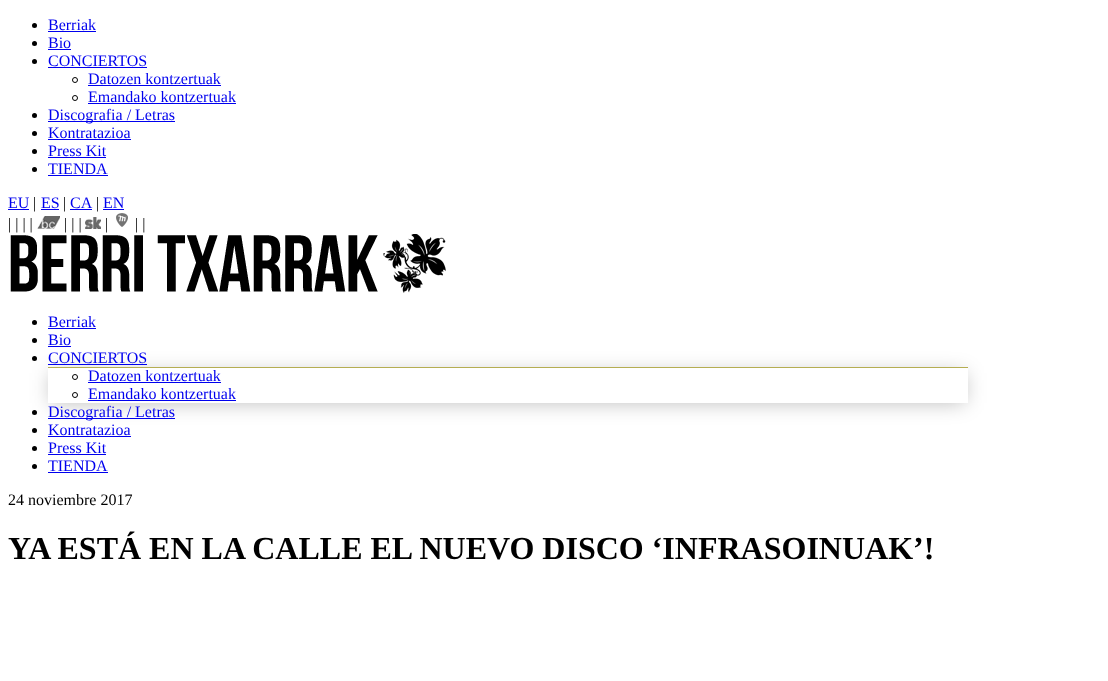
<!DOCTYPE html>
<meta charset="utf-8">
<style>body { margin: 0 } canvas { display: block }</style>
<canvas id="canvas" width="1108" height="681"></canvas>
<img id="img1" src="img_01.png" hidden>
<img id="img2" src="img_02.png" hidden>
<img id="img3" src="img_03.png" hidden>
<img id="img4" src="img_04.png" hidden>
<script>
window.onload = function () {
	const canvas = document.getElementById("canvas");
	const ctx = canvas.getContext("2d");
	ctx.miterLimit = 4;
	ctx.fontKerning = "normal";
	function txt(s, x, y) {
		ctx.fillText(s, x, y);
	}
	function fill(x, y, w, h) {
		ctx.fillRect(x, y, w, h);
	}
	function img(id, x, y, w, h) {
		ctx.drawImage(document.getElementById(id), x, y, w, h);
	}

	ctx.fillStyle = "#FFFFFF";
	fill(0, 0, 1108, 681);
	ctx.fillStyle = "#000000";
	ctx.beginPath();
	ctx.arc(34.5, 25.5, 2.5, 0, Math.PI * 2);
	ctx.fill();
	ctx.fillStyle = "#0000EE";
	fill(48, 31, 48, 1);
	ctx.fillStyle = "#000000";
	ctx.beginPath();
	ctx.arc(34.5, 43.5, 2.5, 0, Math.PI * 2);
	ctx.fill();
	ctx.fillStyle = "#0000EE";
	fill(48, 49, 23, 1);
	ctx.fillStyle = "#000000";
	ctx.beginPath();
	ctx.arc(34.5, 61.5, 2.5, 0, Math.PI * 2);
	ctx.fill();
	ctx.fillStyle = "#0000EE";
	fill(48, 67, 99, 1);
	ctx.beginPath();
	ctx.arc(75, 80, 2.5, 0, Math.PI * 2);
	ctx.strokeStyle = "#000000";
	ctx.stroke();
	fill(88, 85, 133, 1);
	ctx.beginPath();
	ctx.arc(75, 98, 2.5, 0, Math.PI * 2);
	ctx.stroke();
	fill(88, 103, 148, 1);
	ctx.fillStyle = "#000000";
	ctx.beginPath();
	ctx.arc(34.5, 115.5, 2.5, 0, Math.PI * 2);
	ctx.fill();
	ctx.fillStyle = "#0000EE";
	fill(48, 121, 127, 1);
	ctx.fillStyle = "#000000";
	ctx.beginPath();
	ctx.arc(34.5, 133.5, 2.5, 0, Math.PI * 2);
	ctx.fill();
	ctx.fillStyle = "#0000EE";
	fill(48, 139, 83, 1);
	ctx.fillStyle = "#000000";
	ctx.beginPath();
	ctx.arc(34.5, 151.5, 2.5, 0, Math.PI * 2);
	ctx.fill();
	ctx.fillStyle = "#0000EE";
	fill(48, 157, 58, 1);
	ctx.fillStyle = "#000000";
	ctx.beginPath();
	ctx.arc(34.5, 169.5, 2.5, 0, Math.PI * 2);
	ctx.fill();
	ctx.fillStyle = "#0000EE";
	fill(48, 175, 60, 1);
	fill(8, 209, 21, 1);
	fill(41, 209, 18, 1);
	fill(70, 209, 22, 1);
	fill(103, 209, 21, 1);
	img("img1", 37, 216, 23, 13);
	img("img2", 85, 217, 16, 12);
	img("img3", 116, 213, 12, 14);
	img("img4", 10, 234, 436, 59);
	ctx.fillStyle = "#000000";
	ctx.beginPath();
	ctx.arc(34.5, 322.5, 2.5, 0, Math.PI * 2);
	ctx.fill();
	ctx.fillStyle = "#0000EE";
	fill(48, 328, 48, 1);
	ctx.save();
	ctx.beginPath();
	ctx.moveTo(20, 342);
	ctx.lineTo(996, 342);
	ctx.lineTo(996, 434);
	ctx.lineTo(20, 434);
	ctx.closePath();
	ctx.moveTo(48, 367);
	ctx.lineTo(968, 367);
	ctx.lineTo(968, 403);
	ctx.lineTo(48, 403);
	ctx.closePath();
	ctx.clip("evenodd");
	ctx.fillStyle = "rgba(0, 0, 0, 0.26)";
	ctx.filter = "blur(10px)";
	ctx.beginPath();
	ctx.rect(51, 373, 914, 30);
	ctx.fill();
	ctx.filter = "none";
	ctx.restore();
	ctx.fillStyle = "#000000";
	ctx.beginPath();
	ctx.arc(34.5, 340.5, 2.5, 0, Math.PI * 2);
	ctx.fill();
	ctx.fillStyle = "#0000EE";
	fill(48, 346, 23, 1);
	ctx.fillStyle = "#000000";
	ctx.beginPath();
	ctx.arc(34.5, 358.5, 2.5, 0, Math.PI * 2);
	ctx.fill();
	ctx.fillStyle = "#0000EE";
	fill(48, 364, 99, 1);
	ctx.fillStyle = "#B5AD52";
	fill(48, 367, 920, 1);
	ctx.beginPath();
	ctx.arc(75, 377, 2.5, 0, Math.PI * 2);
	ctx.stroke();
	ctx.fillStyle = "#0000EE";
	fill(88, 382, 133, 1);
	ctx.beginPath();
	ctx.arc(75, 395, 2.5, 0, Math.PI * 2);
	ctx.stroke();
	fill(88, 400, 148, 1);
	ctx.fillStyle = "#000000";
	ctx.beginPath();
	ctx.arc(34.5, 412.5, 2.5, 0, Math.PI * 2);
	ctx.fill();
	ctx.fillStyle = "#0000EE";
	fill(48, 418, 127, 1);
	ctx.fillStyle = "#000000";
	ctx.beginPath();
	ctx.arc(34.5, 430.5, 2.5, 0, Math.PI * 2);
	ctx.fill();
	ctx.fillStyle = "#0000EE";
	fill(48, 436, 83, 1);
	ctx.fillStyle = "#000000";
	ctx.beginPath();
	ctx.arc(34.5, 448.5, 2.5, 0, Math.PI * 2);
	ctx.fill();
	ctx.fillStyle = "#0000EE";
	fill(48, 454, 58, 1);
	ctx.fillStyle = "#000000";
	ctx.beginPath();
	ctx.arc(34.5, 466.5, 2.5, 0, Math.PI * 2);
	ctx.fill();
	ctx.fillStyle = "#0000EE";
	fill(48, 472, 60, 1);
	ctx.font = "16px Liberation Serif";
	txt("Berriak", 48, 30);
	txt("Bio", 48, 48);
	txt("CONCIERTOS", 48, 66);
	txt("Datozen kontzertuak", 88, 84);
	txt("Emandako kontzertuak", 88, 102);
	txt("Discografia / Letras", 48, 120);
	txt("Kontratazioa", 48, 138);
	txt("Press Kit", 48, 156);
	txt("TIENDA", 48, 174);
	txt("EU", 8, 208);
	ctx.fillStyle = "#000000";
	txt("|", 33, 208);
	ctx.fillStyle = "#0000EE";
	txt("ES", 41, 208);
	ctx.fillStyle = "#000000";
	txt("|", 63, 208);
	ctx.fillStyle = "#0000EE";
	txt("CA", 70, 208);
	ctx.fillStyle = "#000000";
	txt("|", 96, 208);
	ctx.fillStyle = "#0000EE";
	txt("EN", 103, 208);
	ctx.fillStyle = "#000000";
	txt("| | | |", 8, 229);
	txt("| | |", 64, 229);
	txt("|", 105, 229);
	txt("| |", 135, 229);
	ctx.fillStyle = "#0000EE";
	txt("Berriak", 48, 327);
	txt("Bio", 48, 345);
	txt("CONCIERTOS", 48, 363);
	txt("Datozen kontzertuak", 88, 381);
	txt("Emandako kontzertuak", 88, 399);
	txt("Discografia / Letras", 48, 417);
	txt("Kontratazioa", 48, 435);
	txt("Press Kit", 48, 453);
	txt("TIENDA", 48, 471);
	ctx.fillStyle = "#000000";
	txt("24 noviembre 2017", 8, 505);
	ctx.font = "bold 32px Liberation Serif";
	txt("YA ESTÁ EN LA CALLE EL NUEVO DISCO ‘INFRASOINUAK’!", 8, 559);
};
</script>
